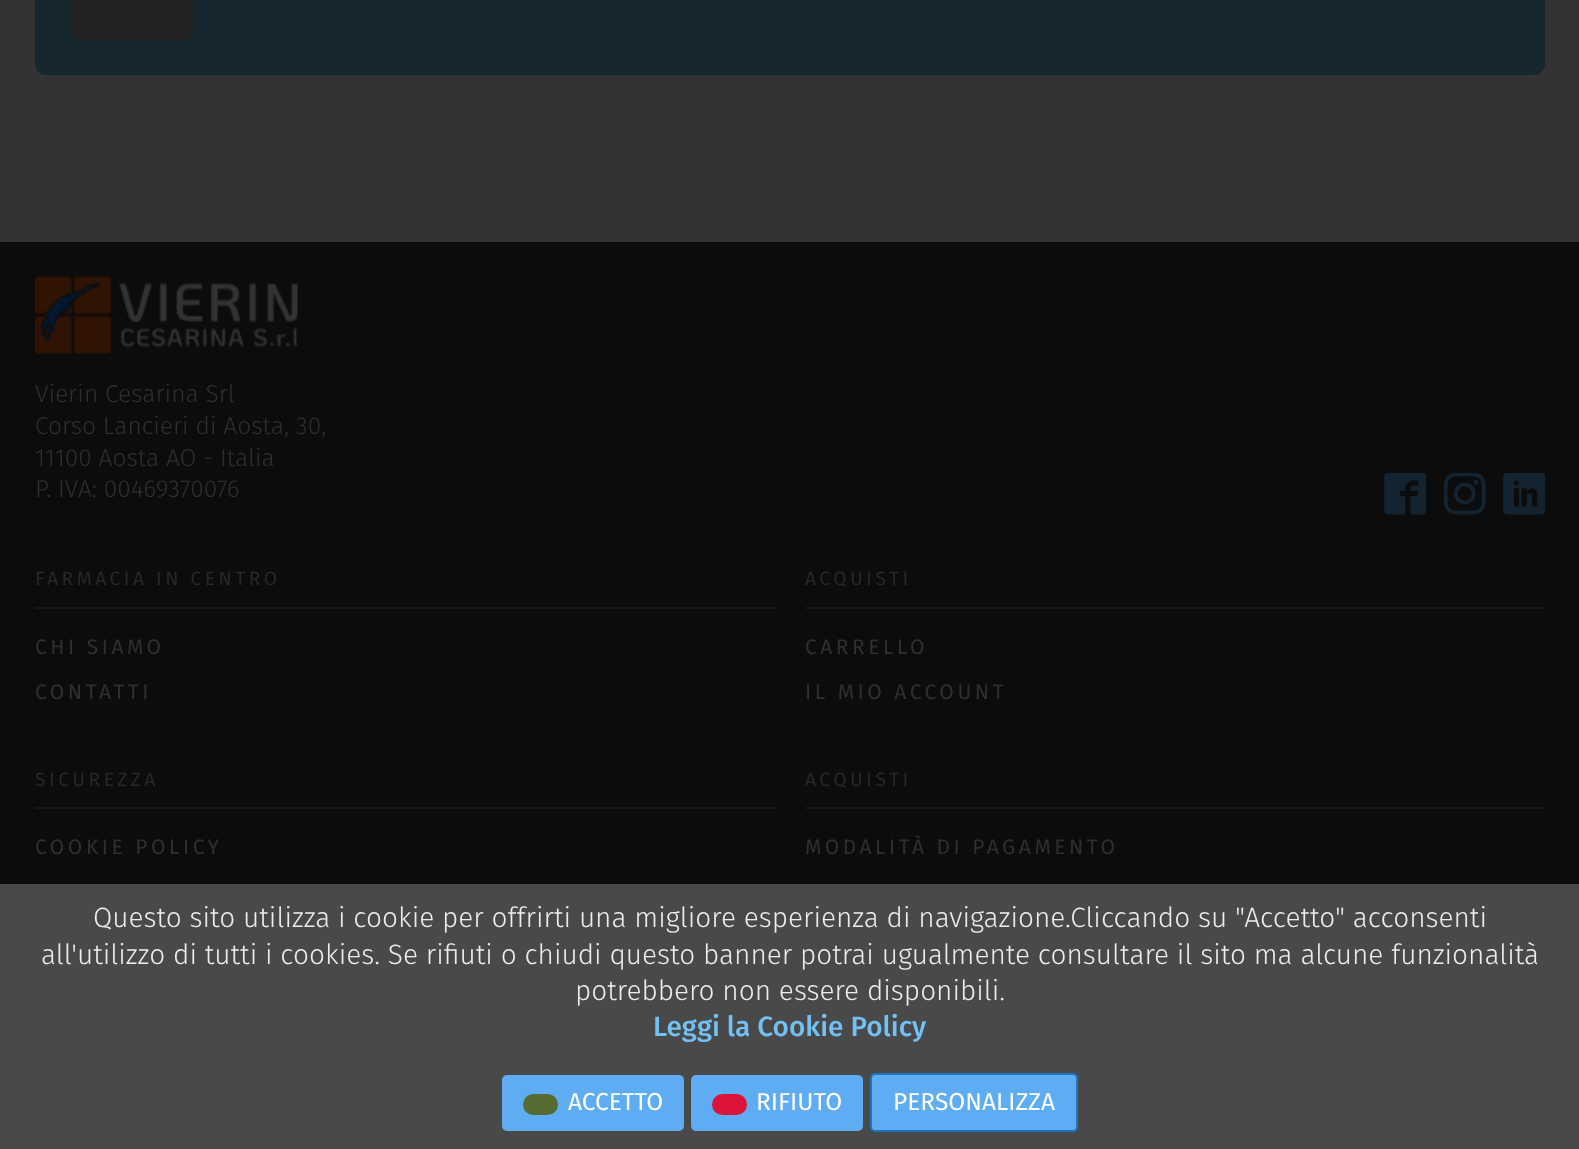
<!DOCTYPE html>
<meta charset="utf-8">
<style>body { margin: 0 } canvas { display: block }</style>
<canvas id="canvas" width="1579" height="1149"></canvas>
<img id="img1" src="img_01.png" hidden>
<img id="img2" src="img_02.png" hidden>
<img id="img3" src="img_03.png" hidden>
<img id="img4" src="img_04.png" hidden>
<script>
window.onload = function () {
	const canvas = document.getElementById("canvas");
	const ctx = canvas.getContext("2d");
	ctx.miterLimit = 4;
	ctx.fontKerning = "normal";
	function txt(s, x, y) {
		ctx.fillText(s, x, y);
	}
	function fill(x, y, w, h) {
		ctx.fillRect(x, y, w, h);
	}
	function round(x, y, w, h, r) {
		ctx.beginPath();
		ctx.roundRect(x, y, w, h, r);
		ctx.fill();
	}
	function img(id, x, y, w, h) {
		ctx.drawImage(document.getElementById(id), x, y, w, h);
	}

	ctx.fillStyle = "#333333";
	fill(0, 0, 1579, 1149);
	ctx.fillStyle = "#172730";
	round(35, -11, 1510, 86, 11);
	ctx.fillStyle = "#222222";
	round(70, -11, 123, 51, 11);
	ctx.fillStyle = "#0C0C0C";
	fill(0, 242, 1579, 642);
	img("img1", 35, 276, 263, 78);
	img("img2", 1384, 473, 42, 42);
	img("img3", 1444, 473, 42, 42);
	img("img4", 1503, 473, 42, 42);
	ctx.fillStyle = "#171717";
	fill(35, 607, 740, 2);
	fill(805, 607, 740, 2);
	fill(35, 807, 740, 2);
	fill(805, 807, 740, 2);
	ctx.fillStyle = "#494949";
	fill(0, 884, 1579, 265);
	ctx.fillStyle = "#5EADF2";
	round(502, 1075, 182, 56, 5);
	ctx.fillStyle = "#556B2F";
	round(523, 1094, 35, 21, 10.5);
	ctx.fillStyle = "#5EADF2";
	round(691, 1075, 172, 56, 5);
	ctx.fillStyle = "#DC143C";
	round(712, 1094, 35, 21, 10.5);
	ctx.fillStyle = "#5EADF2";
	ctx.beginPath();
	ctx.roundRect(871, 1074, 206, 57, 4);
	ctx.fill();
	ctx.strokeStyle = "#1E73BE";
	ctx.lineWidth = 2;
	ctx.stroke();
	ctx.font = "300 24.5px Fira Sans";
	ctx.fillStyle = "#2F2F2F";
	txt("Vierin Cesarina Srl", 35, 402);
	txt("Corso Lancieri di Aosta, 30,", 35, 434);
	txt("11100 Aosta AO - Italia", 35, 466);
	txt("P. IVA: 00469370076", 35, 497);
	ctx.letterSpacing = "3.5px";
	ctx.font = "19.25px Fira Sans";
	ctx.fillStyle = "#272727";
	txt("FARMACIA IN CENTRO", 35, 585);
	ctx.font = "21px Fira Sans";
	ctx.fillStyle = "#2F2F2F";
	txt("CHI SIAMO", 35, 654);
	txt("CONTATTI", 35, 699);
	ctx.font = "19.25px Fira Sans";
	ctx.fillStyle = "#272727";
	txt("ACQUISTI", 805, 585);
	ctx.font = "21px Fira Sans";
	ctx.fillStyle = "#2F2F2F";
	txt("CARRELLO", 805, 654);
	txt("IL MIO ACCOUNT", 805, 699);
	ctx.font = "19.25px Fira Sans";
	ctx.fillStyle = "#272727";
	txt("SICUREZZA", 35, 786);
	ctx.font = "21px Fira Sans";
	ctx.fillStyle = "#2F2F2F";
	txt("COOKIE POLICY", 35, 854);
	ctx.font = "19.25px Fira Sans";
	ctx.fillStyle = "#272727";
	txt("ACQUISTI", 805, 786);
	ctx.font = "21px Fira Sans";
	ctx.fillStyle = "#2F2F2F";
	txt("MODALITÀ DI PAGAMENTO", 805, 854);
	ctx.letterSpacing = "0px";
	ctx.font = "300 28px Fira Sans";
	ctx.fillStyle = "#EDEDED";
	txt("Questo sito utilizza i cookie per offrirti una migliore esperienza di navigazione.Cliccando su \"Accetto\" acconsenti", 93, 927);
	txt("all'utilizzo di tutti i cookies. Se rifiuti o chiudi questo banner potrai ugualmente consultare il sito ma alcune funzionalità", 41, 964);
	txt("potrebbero non essere disponibili.", 575, 1000);
	ctx.font = "500 28px Fira Sans";
	ctx.fillStyle = "#72C1F2";
	txt("Leggi la Cookie Policy", 653, 1036);
	ctx.font = "24.5px Fira Sans";
	ctx.fillStyle = "#FFFFFF";
	txt("ACCETTO", 568, 1110);
	txt("RIFIUTO", 756, 1110);
	txt("PERSONALIZZA", 893, 1110);
};
</script>
